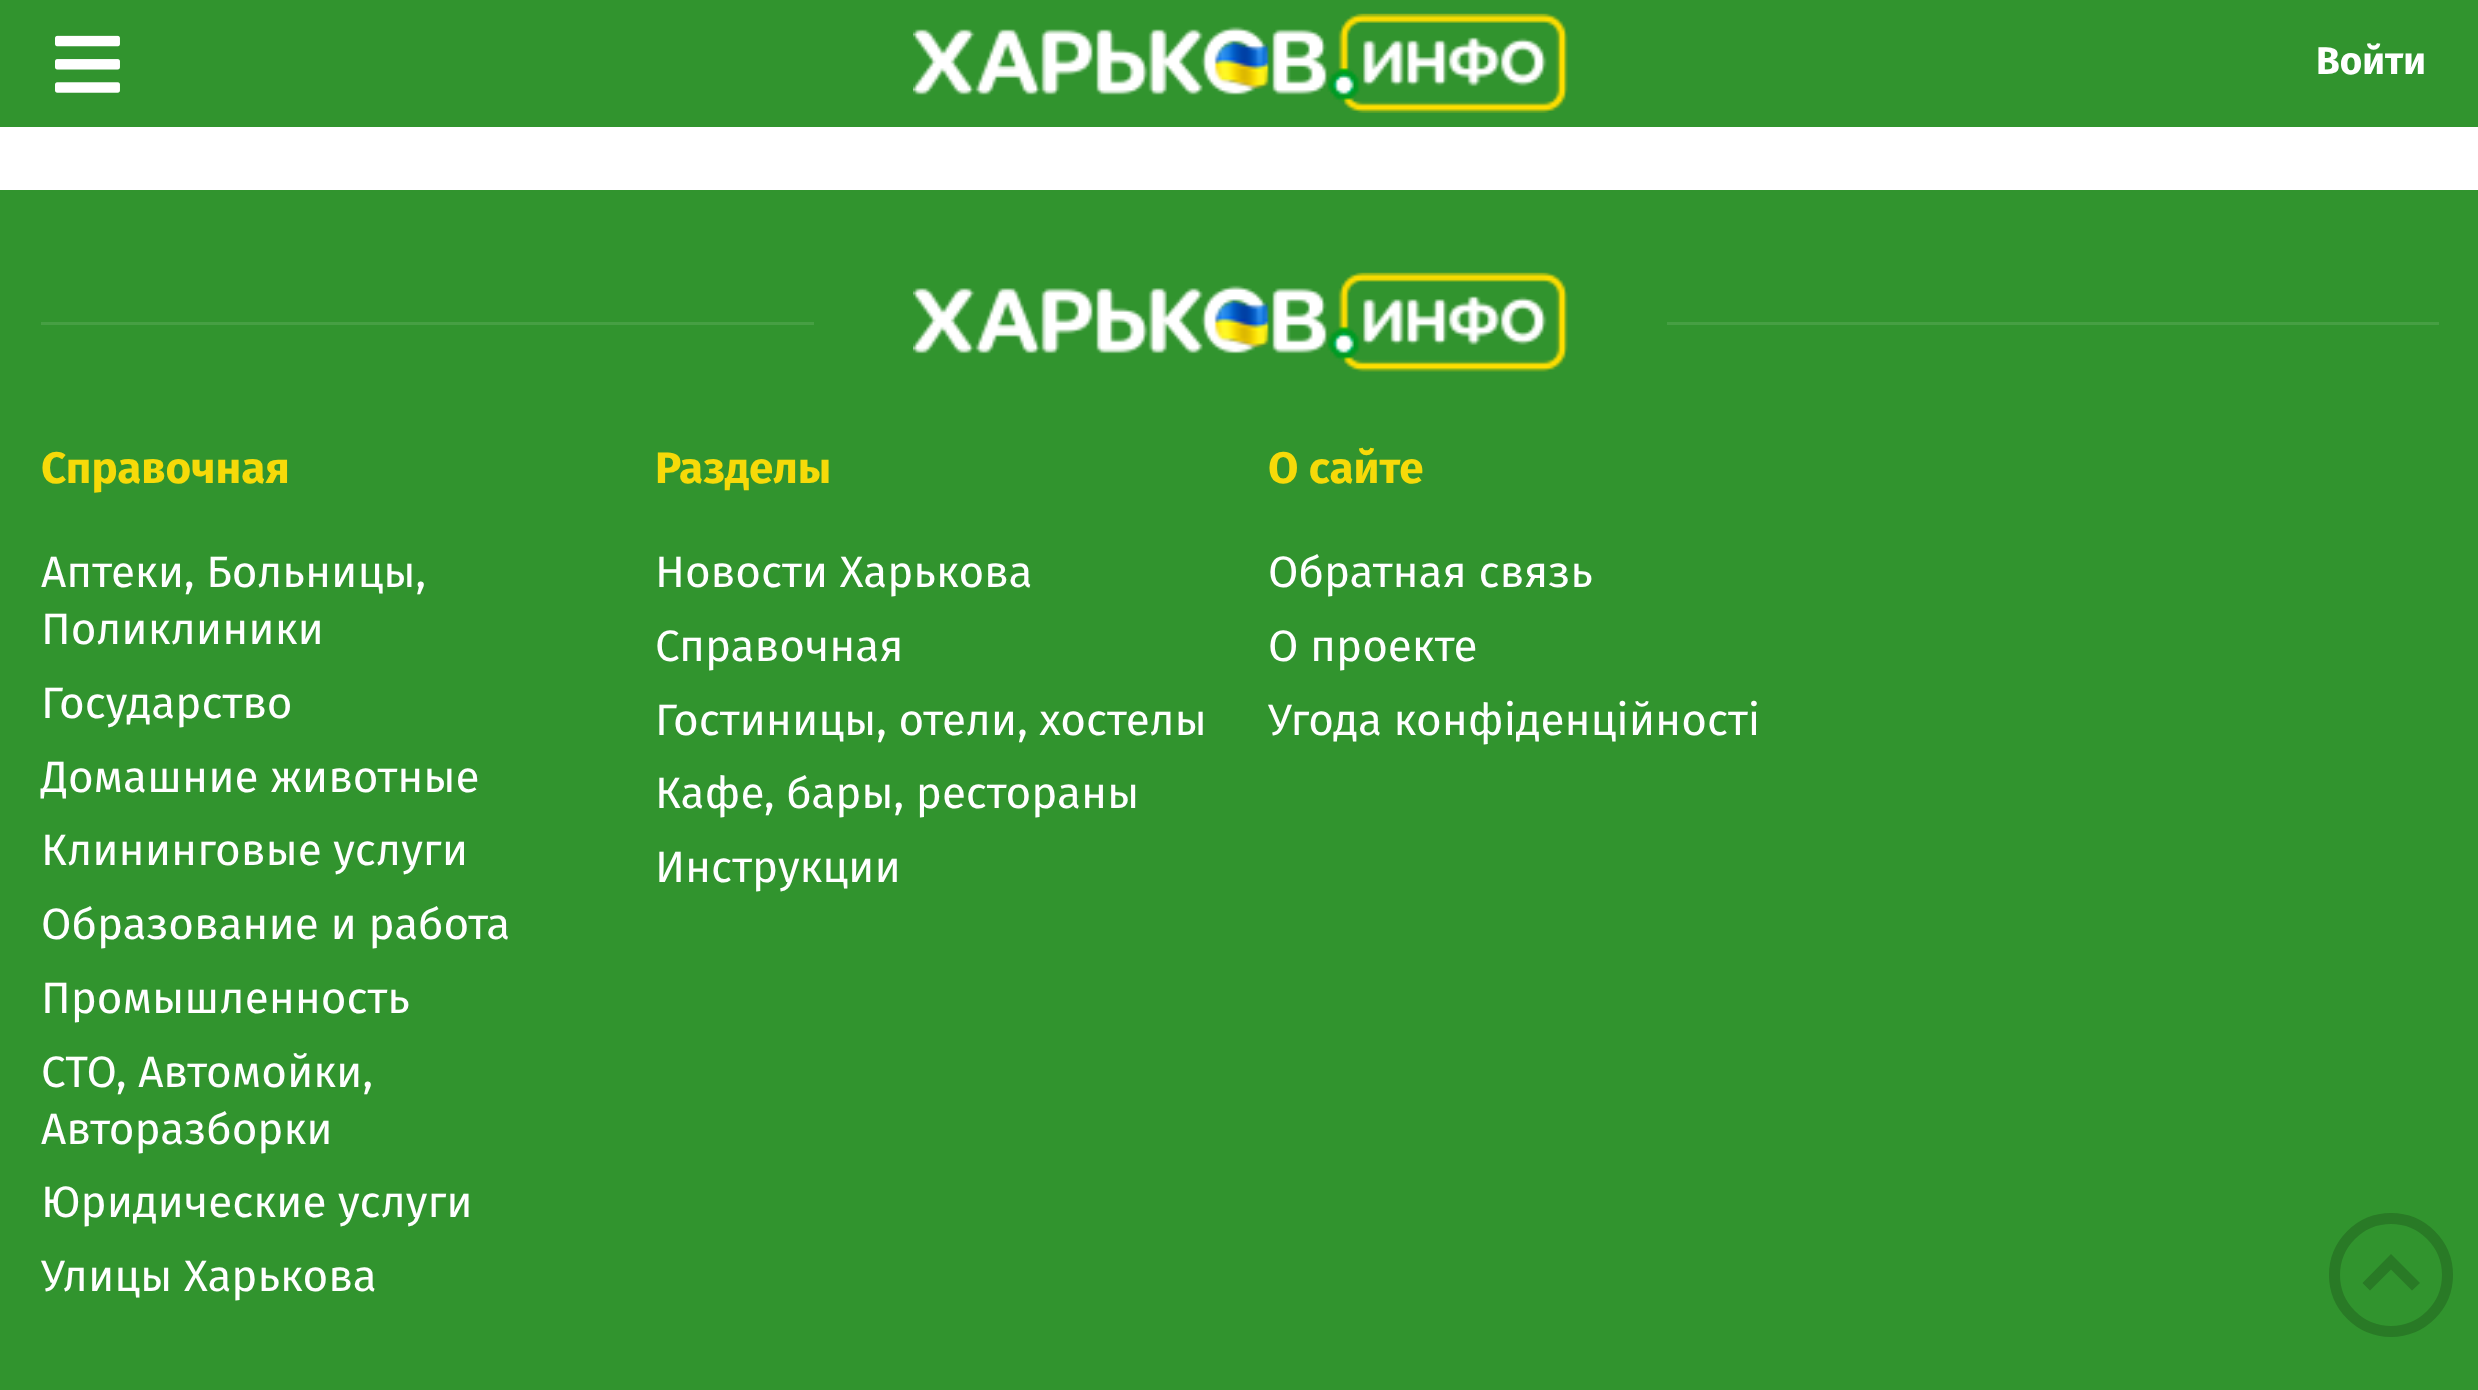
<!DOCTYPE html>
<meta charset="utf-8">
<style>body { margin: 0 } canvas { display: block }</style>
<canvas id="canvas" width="2478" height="1390"></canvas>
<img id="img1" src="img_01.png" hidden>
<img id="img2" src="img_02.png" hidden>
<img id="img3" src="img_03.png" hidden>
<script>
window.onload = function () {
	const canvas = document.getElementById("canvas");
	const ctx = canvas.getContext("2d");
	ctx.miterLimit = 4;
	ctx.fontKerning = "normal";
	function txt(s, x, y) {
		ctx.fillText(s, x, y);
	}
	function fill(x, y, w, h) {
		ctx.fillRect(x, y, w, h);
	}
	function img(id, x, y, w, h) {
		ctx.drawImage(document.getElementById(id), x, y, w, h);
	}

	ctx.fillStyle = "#FFFFFF";
	fill(0, 0, 2478, 1390);
	ctx.fillStyle = "#31942E";
	fill(0, 0, 2478, 127);
	img("img1", 913, 13, 655, 100);
	img("img2", 55, 35, 65, 58);
	fill(0, 190, 2478, 1200);
	ctx.fillStyle = "#469F43";
	fill(41, 322, 773, 3);
	img("img3", 913, 272, 655, 100);
	fill(1667, 322, 772, 3);
	ctx.beginPath();
	ctx.arc(2391, 1275, 56.5, 0, Math.PI * 2);
	ctx.strokeStyle = "#297A26";
	ctx.lineWidth = 11;
	ctx.stroke();
	ctx.fillStyle = "#297A26";
	ctx.beginPath();
	ctx.moveTo(2362.5, 1283);
	ctx.lineTo(2391, 1254);
	ctx.lineTo(2391, 1269.5);
	ctx.lineTo(2370, 1290.5);
	ctx.closePath();
	ctx.moveTo(2391, 1254);
	ctx.lineTo(2420, 1283);
	ctx.lineTo(2412, 1290.5);
	ctx.lineTo(2391, 1269.5);
	ctx.closePath();
	ctx.fill();
	ctx.font = "bold 38.5px Fira Sans";
	ctx.fillStyle = "#FFFFFF";
	txt("Войти", 2316, 74);
	ctx.font = "bold 44px Fira Sans";
	ctx.fillStyle = "#F6DA09";
	txt("Справочная", 41, 483);
	ctx.font = "44px Fira Sans";
	ctx.fillStyle = "#FFFFFF";
	txt("Аптеки, Больницы,", 41, 587);
	txt("Поликлиники", 41, 644);
	txt("Государство", 41, 718);
	txt("Домашние животные", 41, 792);
	txt("Клининговые услуги", 41, 865);
	txt("Образование и работа", 41, 939);
	txt("Промышленность", 41, 1013);
	txt("СТО, Автомойки,", 41, 1087);
	txt("Авторазборки", 41, 1144);
	txt("Юридические услуги", 41, 1217);
	txt("Улицы Харькова", 41, 1291);
	ctx.font = "bold 44px Fira Sans";
	ctx.fillStyle = "#F6DA09";
	txt("Разделы", 655, 483);
	ctx.font = "44px Fira Sans";
	ctx.fillStyle = "#FFFFFF";
	txt("Новости Харькова", 655, 587);
	txt("Справочная", 655, 661);
	txt("Гостиницы, отели, хостелы", 655, 735);
	txt("Кафе, бары, рестораны", 655, 808);
	txt("Инструкции", 655, 882);
	ctx.font = "bold 44px Fira Sans";
	ctx.fillStyle = "#F6DA09";
	txt("О сайте", 1268, 483);
	ctx.font = "44px Fira Sans";
	ctx.fillStyle = "#FFFFFF";
	txt("Обратная связь", 1268, 587);
	txt("О проекте", 1268, 661);
	txt("Угода конфіденційності", 1268, 735);
};
</script>
